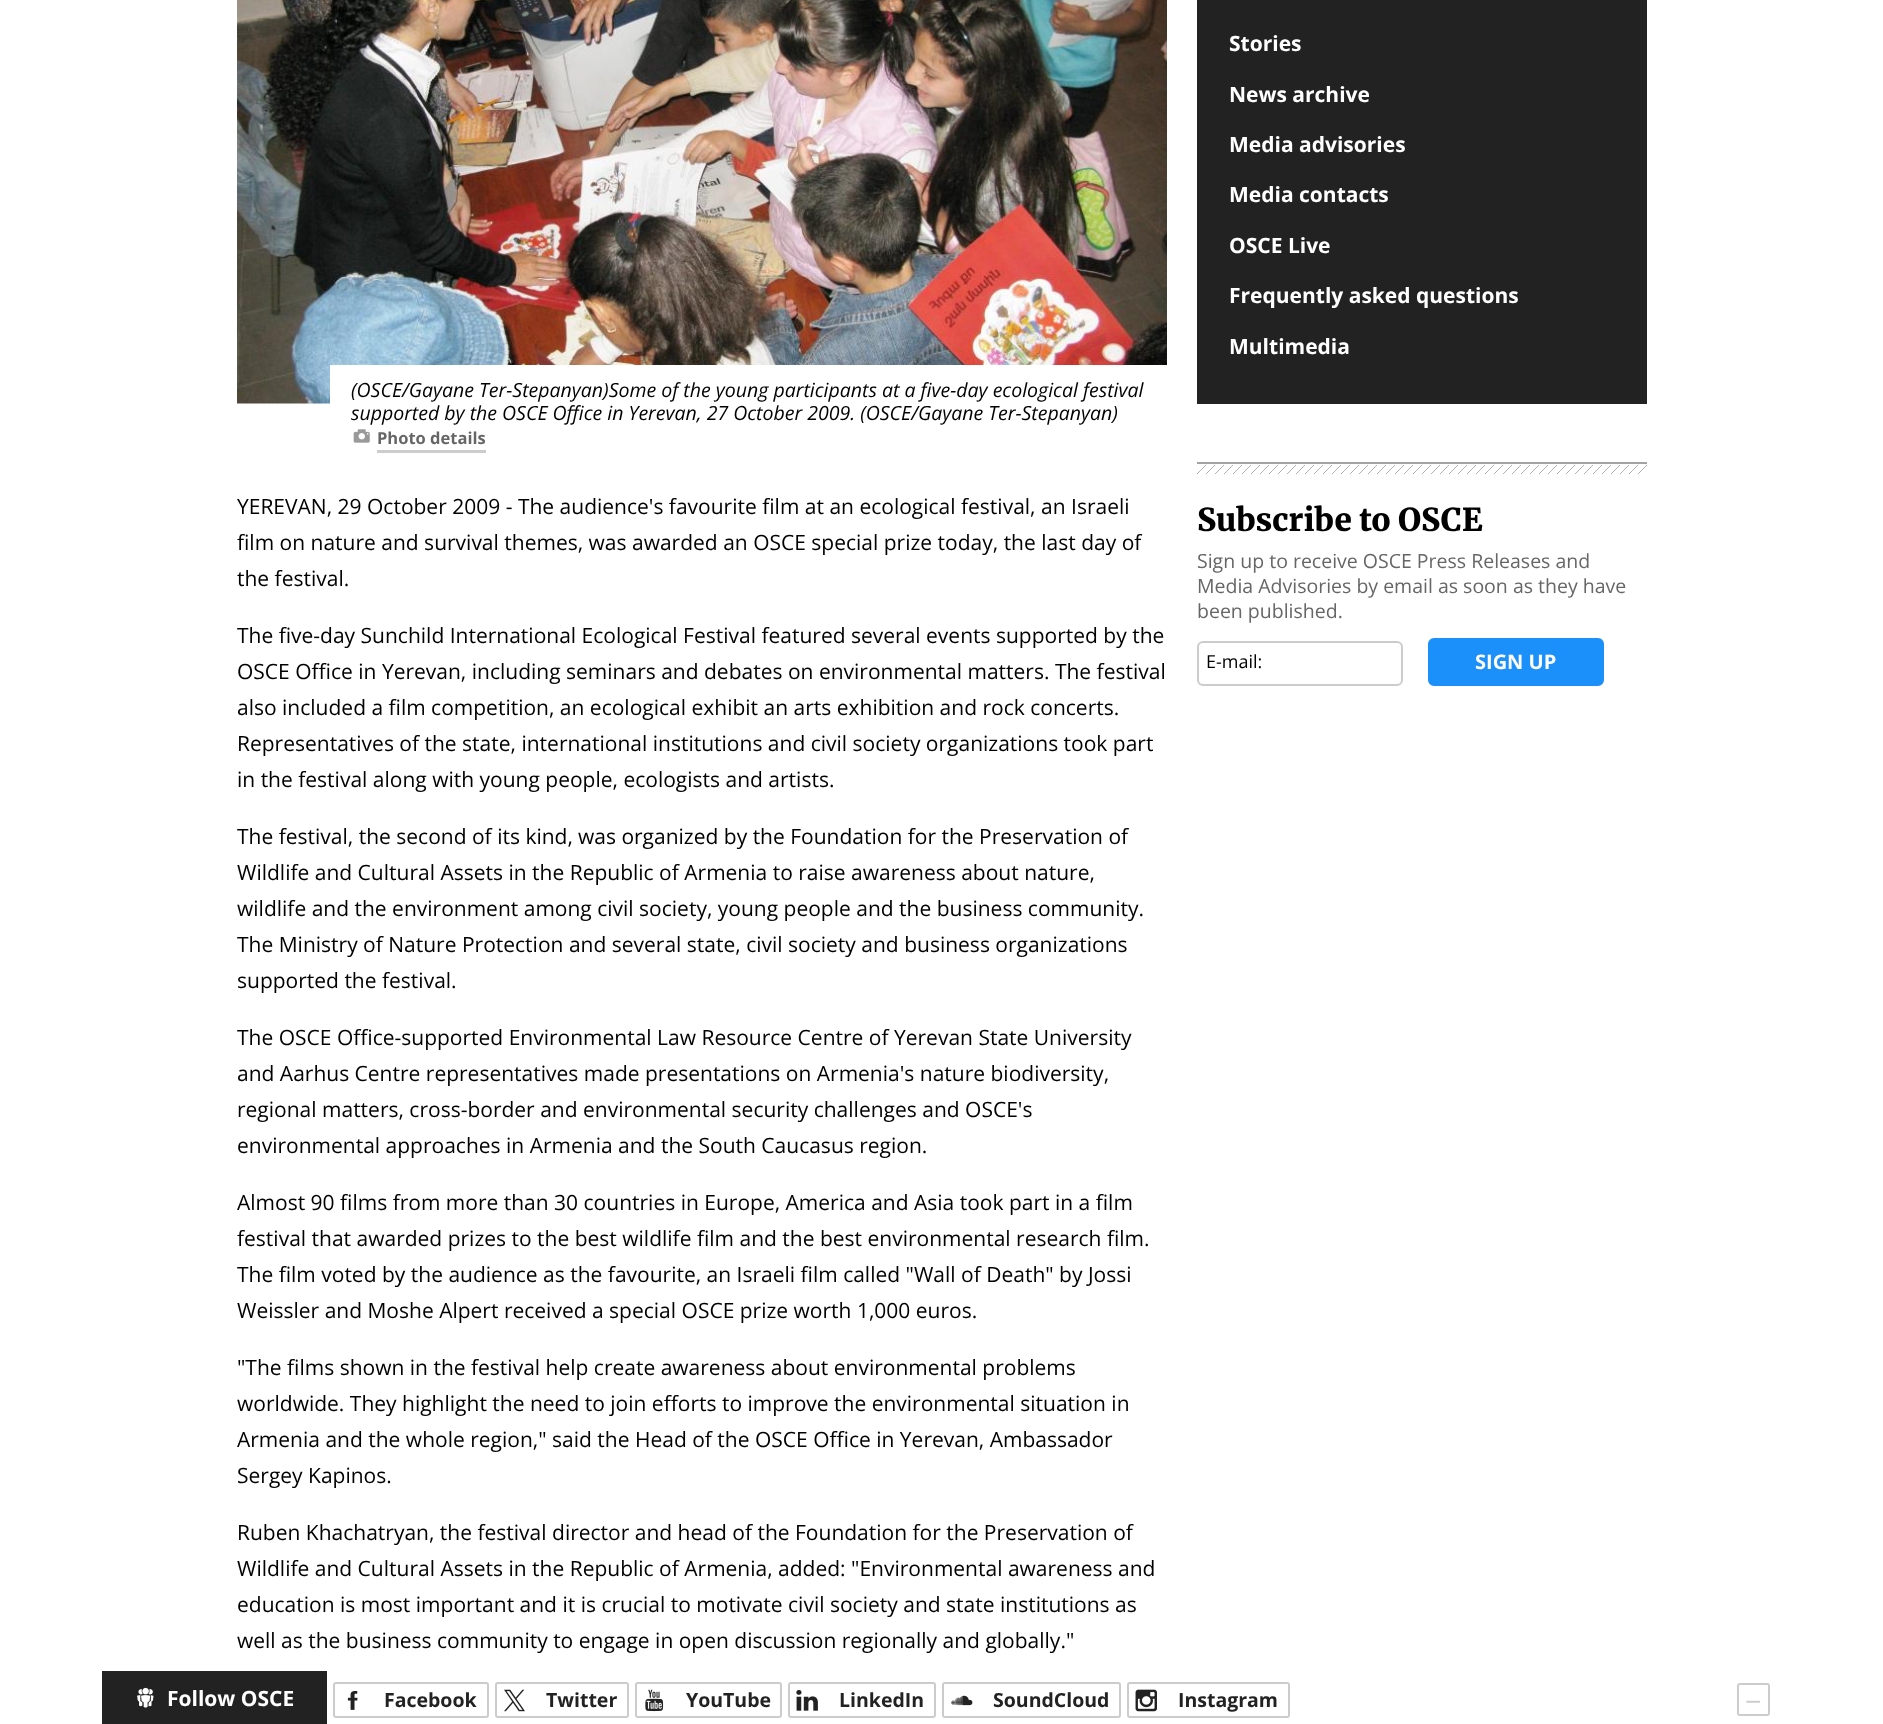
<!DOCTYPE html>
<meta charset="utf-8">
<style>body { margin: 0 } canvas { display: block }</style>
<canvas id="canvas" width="1883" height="1724"></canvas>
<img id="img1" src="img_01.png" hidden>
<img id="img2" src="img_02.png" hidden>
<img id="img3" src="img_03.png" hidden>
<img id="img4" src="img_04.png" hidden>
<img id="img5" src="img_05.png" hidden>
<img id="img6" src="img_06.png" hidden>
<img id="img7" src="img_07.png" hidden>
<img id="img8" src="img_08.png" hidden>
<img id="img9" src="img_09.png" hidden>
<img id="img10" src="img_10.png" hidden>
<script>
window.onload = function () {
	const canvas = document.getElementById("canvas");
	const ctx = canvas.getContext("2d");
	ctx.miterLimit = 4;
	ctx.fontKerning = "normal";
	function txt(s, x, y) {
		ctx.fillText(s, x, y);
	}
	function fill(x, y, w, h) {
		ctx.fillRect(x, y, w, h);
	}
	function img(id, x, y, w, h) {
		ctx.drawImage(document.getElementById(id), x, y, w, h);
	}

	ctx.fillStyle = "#FFFFFF";
	fill(0, 0, 1883, 1724);
	ctx.fillStyle = "#222222";
	fill(1197, 0, 450, 404);
	img("img1", 237, 0, 930, 404);
	ctx.fillStyle = "#FFFFFF";
	fill(330, 365, 837, 39);
	img("img2", 353, 429, 17, 14);
	ctx.fillStyle = "#CCCCCC";
	fill(377, 450, 109, 3);
	ctx.fillStyle = "#A3A3A3";
	fill(1197, 462, 450, 2);
	img("img3", 1197, 465, 450, 9);
	ctx.beginPath();
	ctx.roundRect(1198, 642, 204, 43, 5);
	ctx.strokeStyle = "#CCCCCC";
	ctx.lineWidth = 2;
	ctx.stroke();
	ctx.fillStyle = "#1B8FFA";
	ctx.beginPath();
	ctx.roundRect(1429, 639, 174, 46, 5);
	ctx.fill();
	ctx.strokeStyle = "#1B8FFA";
	ctx.stroke();
	ctx.fillStyle = "#222222";
	fill(102, 1671, 225, 53);
	img("img4", 137, 1687, 17, 21);
	ctx.beginPath();
	ctx.roundRect(334, 1683, 154, 34, 2);
	ctx.strokeStyle = "#CCCCCC";
	ctx.stroke();
	img("img5", 347, 1691, 11, 19);
	ctx.beginPath();
	ctx.roundRect(496, 1683, 132, 34, 2);
	ctx.stroke();
	img("img6", 504, 1689, 21, 23);
	ctx.beginPath();
	ctx.roundRect(636, 1683, 145, 34, 2);
	ctx.stroke();
	img("img7", 645, 1689, 19, 23);
	ctx.beginPath();
	ctx.roundRect(789, 1683, 146, 34, 2);
	ctx.stroke();
	img("img8", 796, 1690, 22, 21);
	ctx.beginPath();
	ctx.roundRect(943, 1683, 177, 34, 2);
	ctx.stroke();
	img("img9", 951, 1695, 22, 11);
	ctx.beginPath();
	ctx.roundRect(1128, 1683, 161, 34, 2);
	ctx.stroke();
	img("img10", 1135, 1689, 22, 23);
	ctx.beginPath();
	ctx.roundRect(1738, 1684, 31, 31, 2);
	ctx.stroke();
	ctx.font = "bold 21px Open Sans";
	ctx.fillStyle = "#FFFFFF";
	txt("Stories", 1229, 51);
	txt("News archive", 1229, 102);
	txt("Media advisories", 1229, 152);
	txt("Media contacts", 1229, 202);
	txt("OSCE Live", 1229, 253);
	txt("Frequently asked questions", 1229, 303);
	txt("Multimedia", 1229, 354);
	ctx.font = "italic 19.5px Open Sans";
	ctx.fillStyle = "#000000";
	txt("(OSCE/Gayane Ter-Stepanyan)Some of the young participants at a five-day ecological festival", 351, 397);
	txt("supported by the OSCE Office in Yerevan, 27 October 2009. (OSCE/Gayane Ter-Stepanyan)", 351, 420);
	ctx.font = "bold 16.5px Open Sans";
	ctx.fillStyle = "#666666";
	txt("Photo details", 377, 444);
	ctx.font = "21px Open Sans";
	ctx.fillStyle = "#000000";
	txt("YEREVAN, 29 October 2009 - The audience's favourite film at an ecological festival, an Israeli", 237, 514);
	txt("film on nature and survival themes, was awarded an OSCE special prize today, the last day of", 237, 550);
	txt("the festival.", 237, 586);
	txt("The five-day Sunchild International Ecological Festival featured several events supported by the", 237, 643);
	txt("OSCE Office in Yerevan, including seminars and debates on environmental matters. The festival", 237, 679);
	txt("also included a film competition, an ecological exhibit an arts exhibition and rock concerts.", 237, 715);
	txt("Representatives of the state, international institutions and civil society organizations took part", 237, 751);
	txt("in the festival along with young people, ecologists and artists.", 237, 787);
	txt("The festival, the second of its kind,", 237, 844);
	txt("was organized by the Foundation for the Preservation of", 578, 844);
	txt("Wildlife and Cultural Assets in the Republic of Armenia to raise awareness about nature,", 237, 880);
	txt("wildlife and the environment among civil society, young people and the business community.", 237, 916);
	txt("The Ministry of Nature Protection and several state, civil society and business organizations", 237, 952);
	txt("supported the festival.", 237, 988);
	txt("The OSCE Office-supported Environmental Law Resource Centre of Yerevan State University", 237, 1045);
	txt("and Aarhus Centre representatives made presentations on Armenia's nature biodiversity,", 237, 1081);
	txt("regional matters, cross-border and environmental security challenges and OSCE's", 237, 1117);
	txt("environmental approaches in Armenia and the South Caucasus region.", 237, 1153);
	txt("Almost 90 films from more than 30 countries in Europe, America and Asia took part in a film", 237, 1210);
	txt("festival that awarded prizes to the best wildlife film and the best environmental research film.", 237, 1246);
	txt("The film voted by the audience as the favourite, an Israeli film called \"Wall of Death\" by Jossi", 237, 1282);
	txt("Weissler and Moshe Alpert received a special OSCE prize worth 1,000 euros.", 237, 1318);
	txt("\"The films shown in the festival help create awareness about environmental problems", 237, 1375);
	txt("worldwide. They highlight the need to join efforts to improve the environmental situation in", 237, 1411);
	txt("Armenia and the whole region,\" said the Head of the OSCE Office in Yerevan, Ambassador", 237, 1447);
	txt("Sergey Kapinos.", 237, 1483);
	txt("Ruben Khachatryan, the festival director and head of the Foundation for the Preservation of", 237, 1540);
	txt("Wildlife and Cultural Assets in the Republic of Armenia, added: \"Environmental awareness and", 237, 1576);
	txt("education is most important and it is crucial to motivate civil society and state institutions as", 237, 1612);
	txt("well as the business community to engage in open discussion regionally and globally.\"", 237, 1648);
	ctx.font = "300 31.5px Merriweather";
	txt("Subscribe to OSCE", 1197, 531);
	ctx.font = "19.5px Open Sans";
	ctx.fillStyle = "#666666";
	txt("Sign up to receive OSCE Press Releases and", 1197, 568);
	txt("Media Advisories by email as soon as they have", 1197, 593);
	txt("been published.", 1197, 618);
	ctx.font = "18px Open Sans";
	ctx.fillStyle = "#000000";
	txt("E-mail:", 1206, 668);
	ctx.font = "bold 20px Open Sans";
	ctx.fillStyle = "#FFFFFF";
	txt("SIGN UP", 1475, 669);
	ctx.font = "bold 21px Open Sans";
	txt("Follow OSCE", 167, 1706);
	ctx.font = "bold 19.5px Open Sans";
	ctx.fillStyle = "#222222";
	txt("Facebook", 384, 1707);
	txt("Twitter", 546, 1707);
	txt("YouTube", 686, 1707);
	txt("LinkedIn", 839, 1707);
	txt("SoundCloud", 993, 1707);
	txt("Instagram", 1178, 1707);
	ctx.font = "29px Open Sans";
	ctx.fillStyle = "#CCCCCC";
	txt("−", 1745, 1712);
};
</script>
